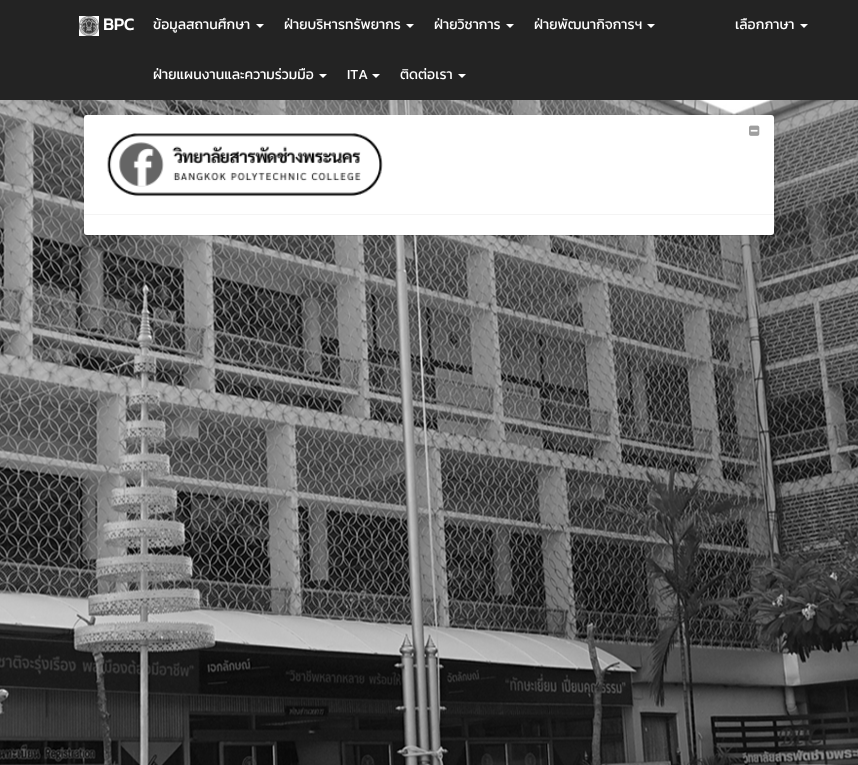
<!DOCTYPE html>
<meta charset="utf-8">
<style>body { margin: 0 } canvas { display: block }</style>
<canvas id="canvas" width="858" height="765"></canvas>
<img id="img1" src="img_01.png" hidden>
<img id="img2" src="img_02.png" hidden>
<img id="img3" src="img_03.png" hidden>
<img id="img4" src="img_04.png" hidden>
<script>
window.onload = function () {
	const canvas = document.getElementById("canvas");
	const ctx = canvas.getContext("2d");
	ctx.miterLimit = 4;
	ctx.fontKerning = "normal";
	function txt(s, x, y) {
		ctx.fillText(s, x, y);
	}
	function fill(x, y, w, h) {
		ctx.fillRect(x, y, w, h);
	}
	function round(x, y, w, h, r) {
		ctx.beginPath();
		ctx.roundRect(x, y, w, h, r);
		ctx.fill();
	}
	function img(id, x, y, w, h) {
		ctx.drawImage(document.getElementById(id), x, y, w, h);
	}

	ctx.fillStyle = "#FFFFFF";
	fill(0, 0, 858, 765);
	ctx.fillStyle = "#232323";
	fill(0, 0, 858, 100);
	img("img1", 79, 16, 20, 20);
	ctx.fillStyle = "#FFFFFF";
	ctx.beginPath();
	ctx.moveTo(256, 24);
	ctx.lineTo(264, 24);
	ctx.lineTo(260, 28);
	ctx.closePath();
	ctx.fill();
	ctx.beginPath();
	ctx.moveTo(406, 24);
	ctx.lineTo(414, 24);
	ctx.lineTo(410, 28);
	ctx.closePath();
	ctx.fill();
	ctx.beginPath();
	ctx.moveTo(506, 24);
	ctx.lineTo(514, 24);
	ctx.lineTo(510, 28);
	ctx.closePath();
	ctx.fill();
	ctx.beginPath();
	ctx.moveTo(647, 24);
	ctx.lineTo(655, 24);
	ctx.lineTo(651, 28);
	ctx.closePath();
	ctx.fill();
	ctx.beginPath();
	ctx.moveTo(319, 74);
	ctx.lineTo(327, 74);
	ctx.lineTo(323, 78);
	ctx.closePath();
	ctx.fill();
	ctx.beginPath();
	ctx.moveTo(372, 74);
	ctx.lineTo(380, 74);
	ctx.lineTo(376, 78);
	ctx.closePath();
	ctx.fill();
	ctx.beginPath();
	ctx.moveTo(458, 74);
	ctx.lineTo(466, 74);
	ctx.lineTo(462, 78);
	ctx.closePath();
	ctx.fill();
	ctx.beginPath();
	ctx.moveTo(800, 24);
	ctx.lineTo(808, 24);
	ctx.lineTo(804, 28);
	ctx.closePath();
	ctx.fill();
	img("img2", 0, 100, 858, 665);
	ctx.fillStyle = "rgba(0, 0, 0, 0.1)";
	ctx.filter = "blur(0.5px)";
	ctx.beginPath();
	ctx.roundRect(84, 116, 690, 120, 3);
	ctx.fill();
	ctx.filter = "none";
	ctx.fillStyle = "#FFFFFF";
	round(84, 115, 690, 120, 3);
	ctx.fillStyle = "#F4F4F4";
	fill(84, 214, 690, 1);
	img("img3", 749, 125, 11, 11);
	img("img4", 107, 133, 276, 64);
	ctx.font = "bold 17px Kanit";
	ctx.fillStyle = "#FFFFFF";
	txt("BPC", 103, 30);
	ctx.font = "14px Kanit";
	txt("ข้อมูลสถานศึกษา", 153, 29);
	txt("ฝ่ายบริหารทรัพยากร", 284, 29);
	txt("ฝ่ายวิชาการ", 434, 29);
	txt("ฝ่ายพัฒนากิจการฯ", 534, 29);
	txt("ฝ่ายแผนงานและความร่วมมือ", 153, 79);
	txt("ITA", 347, 79);
	txt("ติดต่อเรา", 400, 79);
	txt("เลือกภาษา", 735, 29);
};
</script>
